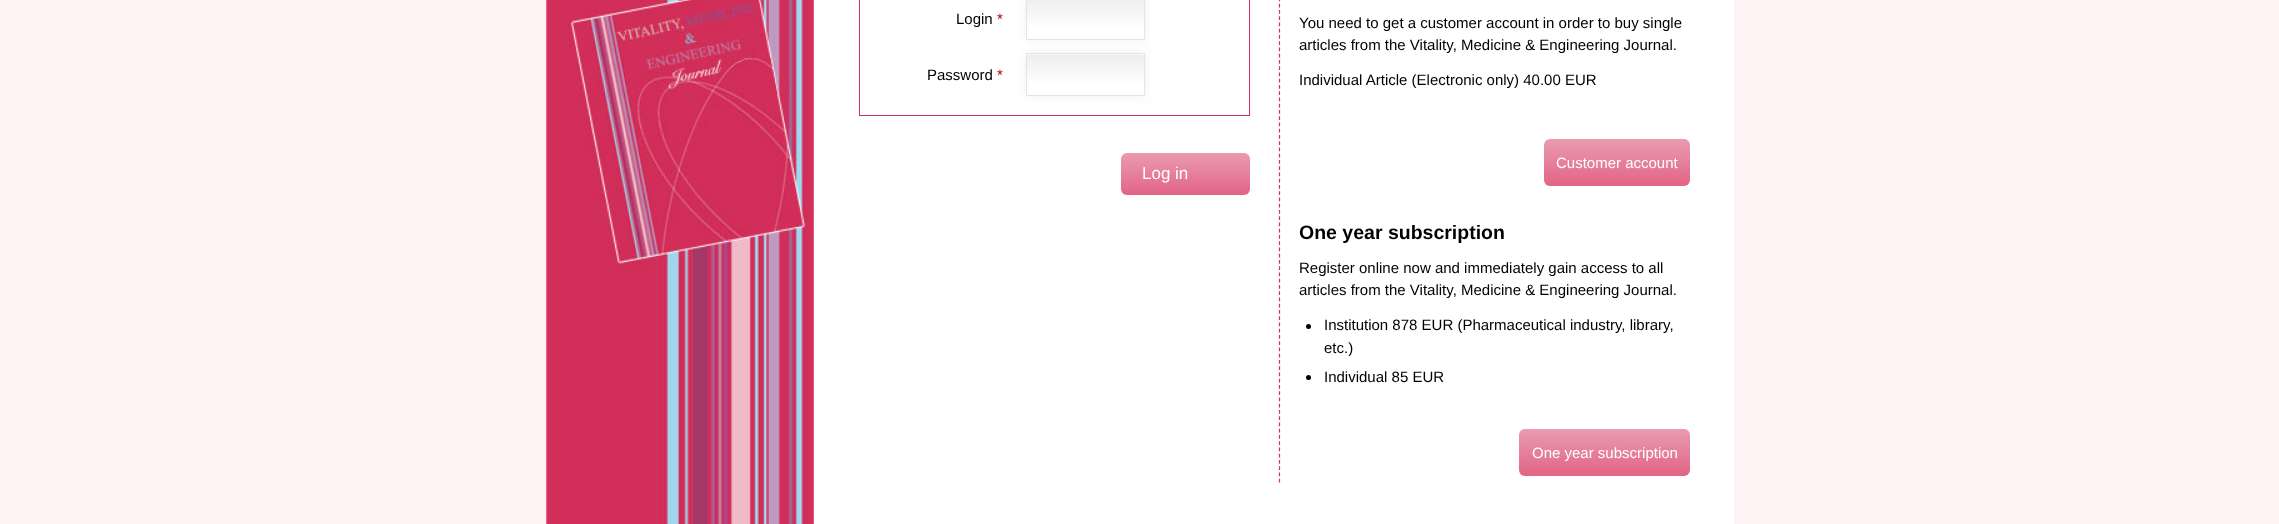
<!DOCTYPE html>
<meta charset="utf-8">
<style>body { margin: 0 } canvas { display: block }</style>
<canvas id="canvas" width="2279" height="524"></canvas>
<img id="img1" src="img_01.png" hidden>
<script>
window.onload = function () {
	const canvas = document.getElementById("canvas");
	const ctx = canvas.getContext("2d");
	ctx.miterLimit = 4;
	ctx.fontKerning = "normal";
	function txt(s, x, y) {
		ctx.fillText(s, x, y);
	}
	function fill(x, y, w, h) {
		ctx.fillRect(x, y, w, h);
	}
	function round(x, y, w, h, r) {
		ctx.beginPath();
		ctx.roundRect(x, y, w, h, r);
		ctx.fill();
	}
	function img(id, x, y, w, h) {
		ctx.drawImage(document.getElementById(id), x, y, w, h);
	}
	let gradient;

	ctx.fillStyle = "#FFF2F5";
	fill(0, 0, 2279, 524);
	ctx.fillStyle = "#FFFFFF";
	fill(546, 0, 1188, 524);
	img("img1", 546, 0, 268, 524);
	ctx.strokeStyle = "#D12F5A";
	ctx.strokeRect(859.5, -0.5, 390, 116);
	ctx.fillStyle = "#F0F0F0";
	ctx.filter = "blur(5px)";
	ctx.beginPath();
	ctx.rect(1026, -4, 119, 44);
	ctx.fill();
	ctx.filter = "none";
	gradient = ctx.createLinearGradient(1028, -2.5, 1028, 29);
	gradient.addColorStop(0, "#FFFFFF");
	gradient.addColorStop(0.04, "#EEEEEE");
	gradient.addColorStop(1, "#FFFFFF");
	ctx.fillStyle = gradient;
	fill(1027, 0, 117, 39);
	ctx.strokeStyle = "#E5E5E5";
	ctx.strokeRect(1026.5, -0.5, 118, 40);
	ctx.fillStyle = "#F0F0F0";
	ctx.filter = "blur(5px)";
	ctx.beginPath();
	ctx.rect(1026, 53, 119, 43);
	ctx.fill();
	ctx.filter = "none";
	gradient = ctx.createLinearGradient(1028, 54, 1028, 85);
	gradient.addColorStop(0, "#FFFFFF");
	gradient.addColorStop(0.04, "#EEEEEE");
	gradient.addColorStop(1, "#FFFFFF");
	ctx.fillStyle = gradient;
	fill(1027, 55, 117, 40);
	ctx.strokeRect(1026.5, 53.5, 118, 42);
	gradient = ctx.createLinearGradient(1186, 153, 1186, 195);
	gradient.addColorStop(0, "#E99BB0");
	gradient.addColorStop(1, "#E26485");
	ctx.fillStyle = gradient;
	round(1121, 153, 129, 42, 6);
	ctx.beginPath();
	ctx.moveTo(1279.5, -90);
	ctx.lineTo(1279.5, 482.5);
	ctx.strokeStyle = "#D12F5A";
	ctx.lineWidth = 1.2;
	ctx.setLineDash([3.75, 2.5]);
	ctx.stroke();
	gradient = ctx.createLinearGradient(1617, 139, 1617, 186);
	gradient.addColorStop(0, "#E99BB0");
	gradient.addColorStop(1, "#E26485");
	ctx.fillStyle = gradient;
	round(1544, 139, 146, 47, 6);
	ctx.fillStyle = "#000000";
	ctx.beginPath();
	ctx.arc(1308.5, 326.5, 2.5, 0, Math.PI * 2);
	ctx.fill();
	ctx.beginPath();
	ctx.arc(1308.5, 377.5, 2.5, 0, Math.PI * 2);
	ctx.fill();
	gradient = ctx.createLinearGradient(1604, 429, 1604, 476);
	gradient.addColorStop(0, "#E99BB0");
	gradient.addColorStop(1, "#E26485");
	ctx.fillStyle = gradient;
	round(1519, 429, 171, 47, 6);
	ctx.font = "15px Liberation Sans";
	ctx.fillStyle = "#000000";
	txt("Login", 956, 24);
	ctx.fillStyle = "#AA0000";
	txt("*", 997, 24);
	ctx.fillStyle = "#000000";
	txt("Password", 927, 80);
	ctx.fillStyle = "#AA0000";
	txt("*", 997, 80);
	ctx.font = "17px Liberation Sans";
	ctx.fillStyle = "#FFFFFF";
	txt("Log in", 1142, 179);
	ctx.font = "15px Liberation Sans";
	ctx.fillStyle = "#000000";
	txt("You need to get a customer account in order to buy single", 1299, 28);
	txt("articles from the Vitality, Medicine & Engineering Journal.", 1299, 50);
	txt("Individual Article (Electronic only) 40.00 EUR", 1299, 85);
	ctx.fillStyle = "#FFFFFF";
	txt("Customer account", 1556, 168);
	ctx.font = "bold 19.5px Liberation Sans";
	ctx.fillStyle = "#000000";
	txt("One year subscription", 1299, 239);
	ctx.font = "15px Liberation Sans";
	txt("Register online now and immediately gain access to all", 1299, 273);
	txt("articles from the Vitality, Medicine & Engineering Journal.", 1299, 295);
	txt("Institution 878 EUR (Pharmaceutical industry, library,", 1324, 330);
	txt("etc.)", 1324, 353);
	txt("Individual 85 EUR", 1324, 382);
	ctx.fillStyle = "#FFFFFF";
	txt("One year subscription", 1532, 458);
};
</script>
